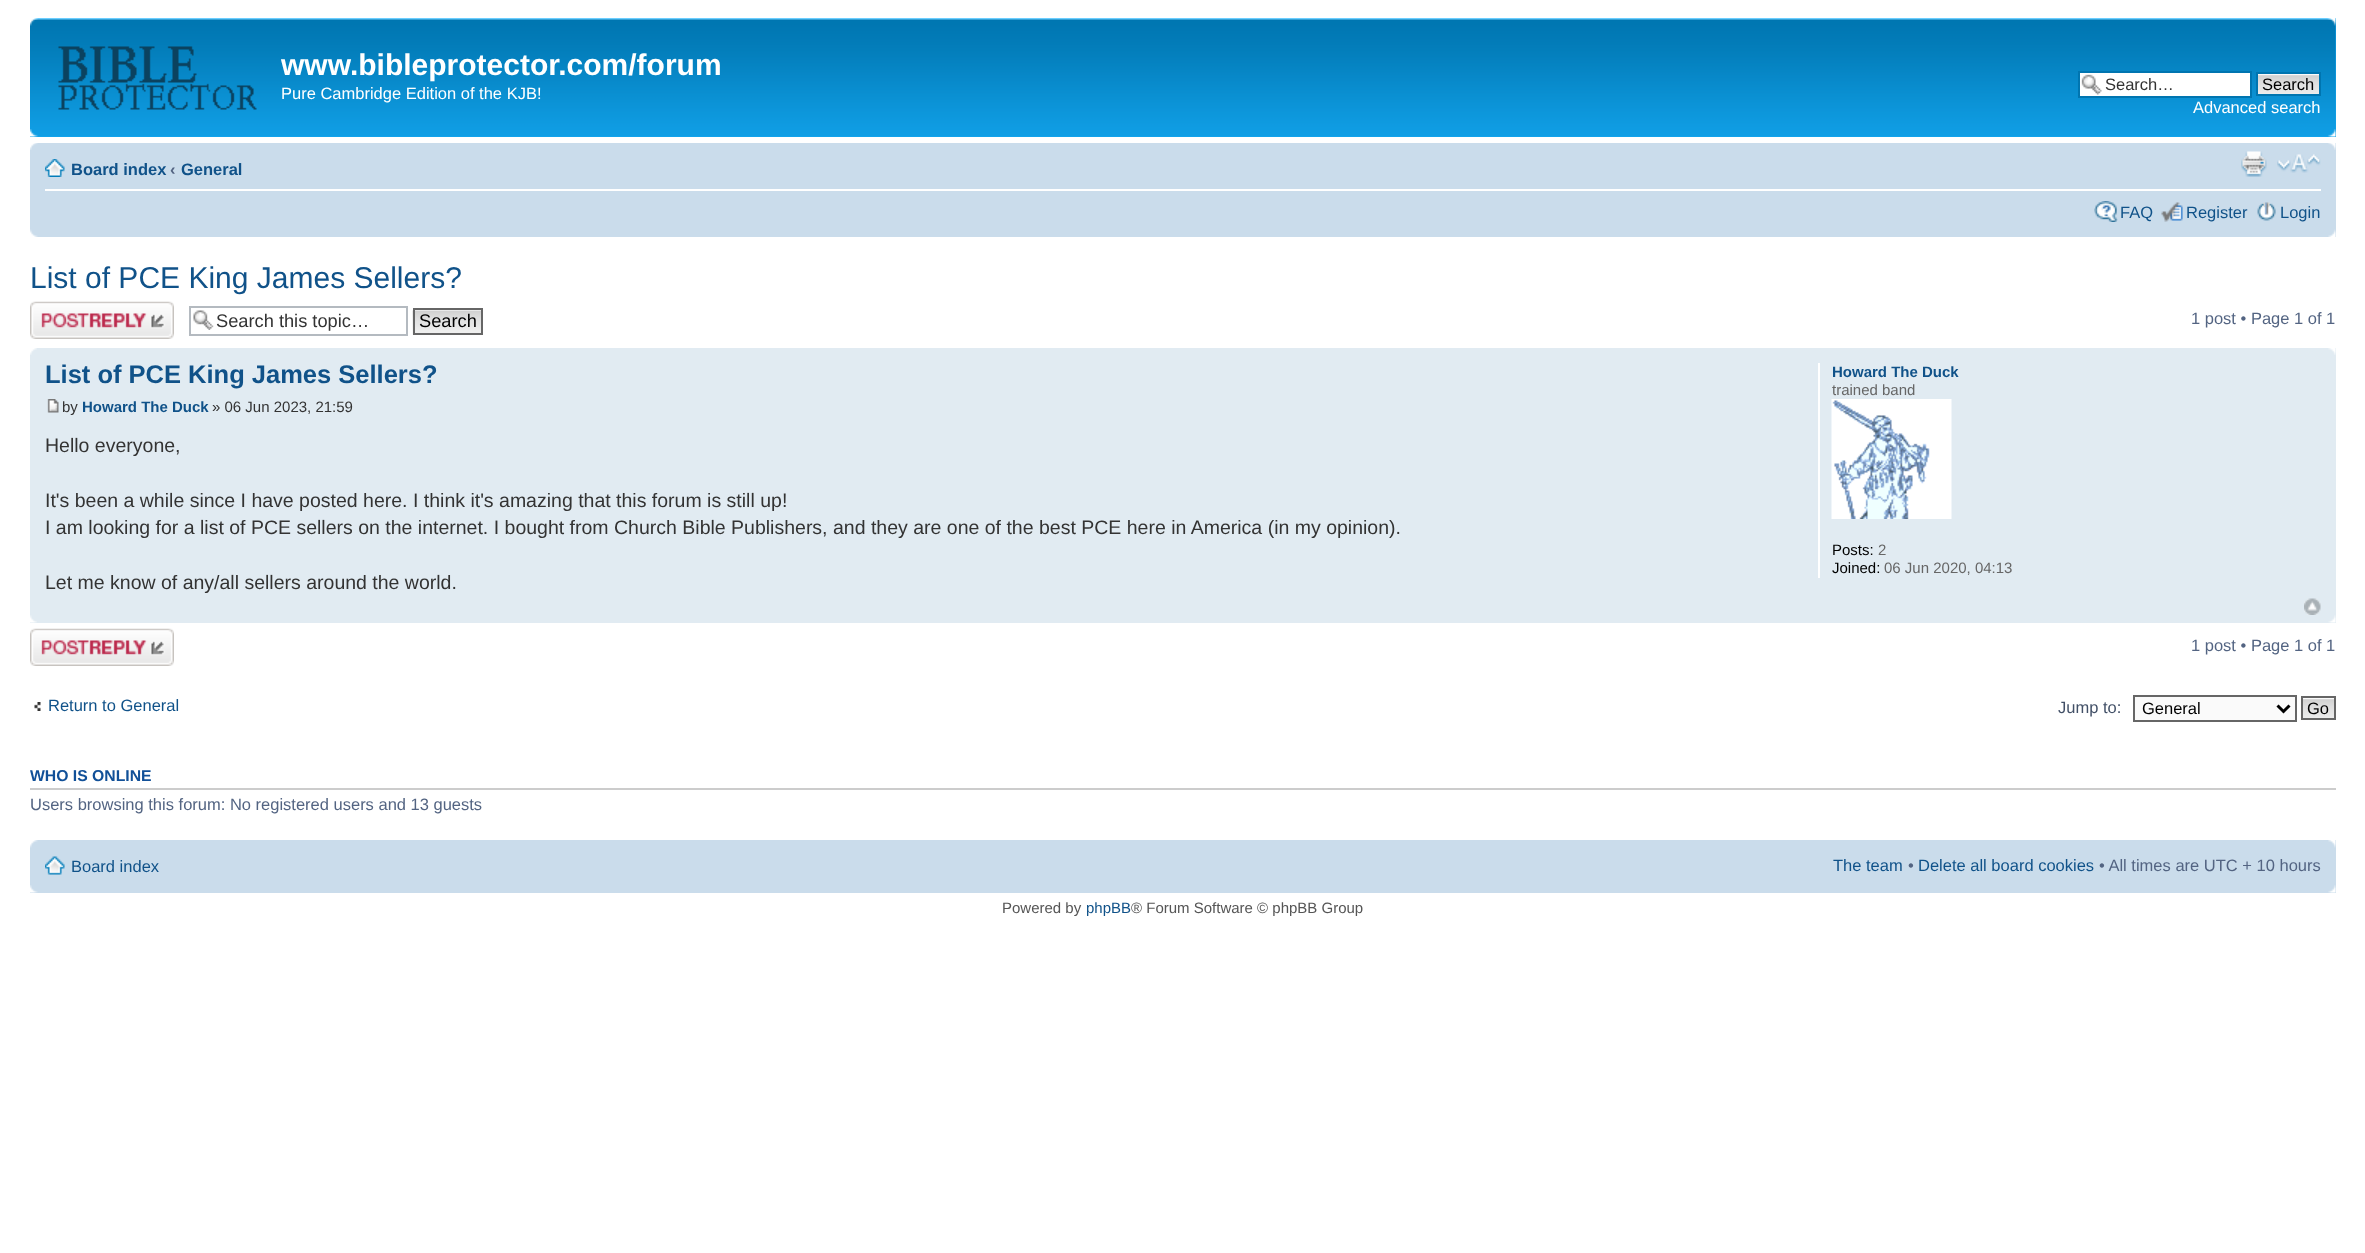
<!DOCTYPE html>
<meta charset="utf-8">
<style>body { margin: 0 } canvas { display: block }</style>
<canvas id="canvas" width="2365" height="1253"></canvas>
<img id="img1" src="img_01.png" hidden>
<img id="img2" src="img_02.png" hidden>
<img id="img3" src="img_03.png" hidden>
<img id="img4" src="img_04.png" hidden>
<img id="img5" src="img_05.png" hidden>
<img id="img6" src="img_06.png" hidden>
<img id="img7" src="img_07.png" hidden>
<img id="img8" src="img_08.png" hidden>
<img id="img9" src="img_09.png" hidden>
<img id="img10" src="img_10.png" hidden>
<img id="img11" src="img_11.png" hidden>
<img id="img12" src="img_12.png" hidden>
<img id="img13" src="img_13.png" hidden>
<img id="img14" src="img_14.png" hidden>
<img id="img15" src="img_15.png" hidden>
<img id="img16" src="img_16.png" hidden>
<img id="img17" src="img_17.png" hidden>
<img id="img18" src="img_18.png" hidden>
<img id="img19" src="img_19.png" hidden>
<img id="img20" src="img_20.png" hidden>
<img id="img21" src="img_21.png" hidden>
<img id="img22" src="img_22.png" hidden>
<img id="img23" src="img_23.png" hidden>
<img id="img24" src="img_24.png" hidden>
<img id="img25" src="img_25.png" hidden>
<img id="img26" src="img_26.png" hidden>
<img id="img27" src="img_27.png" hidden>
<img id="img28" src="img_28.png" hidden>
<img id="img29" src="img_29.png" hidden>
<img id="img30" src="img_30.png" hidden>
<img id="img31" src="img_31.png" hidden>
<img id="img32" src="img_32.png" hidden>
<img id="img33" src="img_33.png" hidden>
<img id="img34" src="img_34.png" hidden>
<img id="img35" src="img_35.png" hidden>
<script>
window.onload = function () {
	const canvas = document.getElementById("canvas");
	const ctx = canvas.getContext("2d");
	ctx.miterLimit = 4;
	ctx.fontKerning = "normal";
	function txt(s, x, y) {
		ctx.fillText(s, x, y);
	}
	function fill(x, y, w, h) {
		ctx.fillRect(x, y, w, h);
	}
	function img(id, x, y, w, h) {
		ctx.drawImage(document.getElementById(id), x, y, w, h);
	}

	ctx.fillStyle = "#FFFFFF";
	fill(0, 0, 2365, 1253);
	ctx.fillStyle = "#12A3EB";
	fill(30, 18, 2306, 119);
	img("img1", 30, 18, 2306, 118);
	img("img2", 30, 18, 8, 8);
	img("img3", 2327, 18, 9, 8);
	img("img4", 58, 46, 199, 64);
	ctx.fillStyle = "#FFFFFF";
	fill(2080, 73, 170, 23);
	img("img5", 2081, 74, 21, 21);
	ctx.strokeStyle = "#0075B0";
	ctx.lineWidth = 2;
	ctx.strokeRect(2079, 72, 172, 25);
	ctx.fillStyle = "#FAFAFA";
	fill(2258, 74, 61, 1);
	img("img6", 2258, 75, 61, 19);
	ctx.strokeRect(2257, 73, 63, 22);
	img("img7", 30, 129, 8, 8);
	img("img8", 2327, 129, 9, 8);
	ctx.fillStyle = "#CADCEB";
	fill(30, 143, 2306, 94);
	img("img9", 30, 143, 8, 7);
	img("img10", 2328, 143, 8, 7);
	ctx.fillStyle = "#FFFFFF";
	fill(45, 189, 2276, 2);
	img("img11", 45, 159, 20, 18);
	img("img12", 2241, 151, 26, 26);
	img("img13", 2277, 154, 44, 19);
	img("img14", 2094, 201, 24, 21);
	img("img15", 2161, 202, 22, 20);
	img("img16", 2257, 202, 19, 19);
	img("img17", 30, 229, 8, 8);
	img("img18", 2328, 229, 8, 8);
	img("img19", 30, 301, 144, 38);
	img("img20", 193, 310, 21, 20);
	ctx.strokeStyle = "#B4BAC0";
	ctx.strokeRect(190, 307, 217, 28);
	img("img21", 412, 309, 69, 26);
	ctx.strokeStyle = "#666666";
	ctx.strokeRect(414, 309, 68, 25);
	ctx.fillStyle = "#E1EBF2";
	fill(30, 348, 2306, 275);
	img("img22", 30, 348, 7, 7);
	img("img23", 2328, 348, 8, 7);
	img("img24", 47, 399, 12, 14);
	ctx.fillStyle = "#FFFFFF";
	fill(1818, 363, 2, 215);
	img("img25", 1831, 399, 121, 120);
	img("img26", 2304, 598, 17, 17);
	img("img27", 30, 615, 7, 8);
	img("img28", 2328, 615, 8, 8);
	img("img19", 30, 628, 144, 38);
	img("img29", 34, 702, 7, 9);
	ctx.fillStyle = "#FAFAFA";
	ctx.beginPath();
	ctx.rect(2134, 696, 162, 25);
	ctx.fill();
	ctx.stroke();
	ctx.beginPath();
	ctx.moveTo(2277.5, 705.5);
	ctx.lineTo(2283.5, 711.5);
	ctx.lineTo(2289.5, 705.5);
	ctx.strokeStyle = "#000000";
	ctx.lineWidth = 3;
	ctx.stroke();
	fill(2303, 698, 31, 1);
	img("img30", 2303, 699, 31, 19);
	ctx.strokeStyle = "#666666";
	ctx.lineWidth = 2;
	ctx.strokeRect(2302, 697, 33, 22);
	ctx.fillStyle = "#CCCCCC";
	fill(30, 788, 2306, 2);
	ctx.fillStyle = "#CADCEB";
	fill(30, 840, 2306, 53);
	img("img31", 30, 840, 8, 8);
	img("img32", 2328, 840, 8, 8);
	img("img33", 45, 856, 20, 19);
	img("img34", 30, 885, 8, 8);
	img("img35", 2328, 885, 8, 8);
	ctx.font = "bold 30px Liberation Sans";
	ctx.fillStyle = "#FFFFFF";
	txt("www.bibleprotector.com/forum", 281, 75);
	ctx.font = "16.5px Liberation Sans";
	txt("Pure Cambridge Edition of the KJB!", 281, 99);
	ctx.fillStyle = "#333333";
	txt("Search…", 2105, 90);
	ctx.fillStyle = "#000000";
	txt("Search", 2262, 90);
	ctx.fillStyle = "#FFFFFF";
	txt("Advanced search", 2193, 113);
	ctx.font = "bold 16.5px Liberation Sans";
	ctx.fillStyle = "#105289";
	txt("Board index", 71, 175);
	ctx.fillStyle = "#536482";
	txt("‹", 170, 175);
	ctx.fillStyle = "#105289";
	txt("General", 181, 175);
	ctx.font = "16.5px Liberation Sans";
	txt("FAQ", 2120, 218);
	txt("Register", 2186, 218);
	txt("Login", 2280, 218);
	ctx.font = "30px Liberation Sans";
	txt("List of PCE King James Sellers?", 30, 288);
	ctx.font = "18.25px Liberation Sans";
	ctx.fillStyle = "#333333";
	txt("Search this topic…", 216, 327);
	ctx.fillStyle = "#000000";
	txt("Search", 419, 327);
	ctx.font = "16.5px Liberation Sans";
	ctx.fillStyle = "#536482";
	txt("1 post • Page 1 of 1", 2191, 324);
	ctx.font = "bold 25.5px Liberation Sans";
	ctx.fillStyle = "#105289";
	txt("List of PCE King James Sellers?", 45, 383);
	ctx.font = "15px Liberation Sans";
	ctx.fillStyle = "#333333";
	txt("by", 62, 412);
	ctx.font = "bold 15px Liberation Sans";
	ctx.fillStyle = "#105289";
	txt("Howard The Duck", 82, 412);
	ctx.font = "15px Liberation Sans";
	ctx.fillStyle = "#333333";
	txt("» 06 Jun 2023, 21:59", 212, 412);
	ctx.font = "19.5px Liberation Sans";
	txt("Hello everyone,", 45, 452);
	txt("It's been a while since I have posted here. I think it's amazing that this forum is still up!", 45, 507);
	txt("I am looking for a list of PCE sellers on the internet. I bought from Church Bible Publishers, and they are one of the best PCE here in America (in my opinion).", 45, 534);
	txt("Let me know of any/all sellers around the world.", 45, 589);
	ctx.font = "bold 15px Liberation Sans";
	ctx.fillStyle = "#105289";
	txt("Howard The Duck", 1832, 377);
	ctx.font = "15px Liberation Sans";
	ctx.fillStyle = "#666666";
	txt("trained band", 1832, 395);
	ctx.fillStyle = "#000000";
	txt("Posts:", 1832, 555);
	ctx.fillStyle = "#666666";
	txt("2", 1878, 555);
	ctx.fillStyle = "#000000";
	txt("Joined:", 1832, 573);
	ctx.fillStyle = "#666666";
	txt("06 Jun 2020, 04:13", 1884, 573);
	ctx.font = "16.5px Liberation Sans";
	ctx.fillStyle = "#536482";
	txt("1 post • Page 1 of 1", 2191, 651);
	ctx.fillStyle = "#105289";
	txt("Return to General", 48, 711);
	ctx.fillStyle = "#425067";
	txt("Jump to:", 2058, 713);
	ctx.fillStyle = "#000000";
	txt("General", 2142, 714);
	txt("Go", 2307, 714);
	ctx.font = "bold 15.75px Liberation Sans";
	ctx.fillStyle = "#115098";
	txt("WHO IS ONLINE", 30, 781);
	ctx.font = "16.5px Liberation Sans";
	ctx.fillStyle = "#536482";
	txt("Users browsing this forum: No registered users and 13 guests", 30, 810);
	ctx.fillStyle = "#105289";
	txt("Board index", 71, 872);
	txt("The team", 1833, 871);
	ctx.fillStyle = "#536482";
	txt("•", 1908, 871);
	ctx.fillStyle = "#105289";
	txt("Delete all board cookies", 1918, 871);
	ctx.fillStyle = "#536482";
	txt("• All times are UTC + 10 hours", 2099, 871);
	ctx.font = "15px Liberation Sans";
	ctx.fillStyle = "#555555";
	txt("Powered by", 1002, 913);
	ctx.fillStyle = "#105289";
	txt("phpBB", 1086, 913);
	ctx.fillStyle = "#555555";
	txt("® Forum Software © phpBB Group", 1131, 913);
};
</script>
